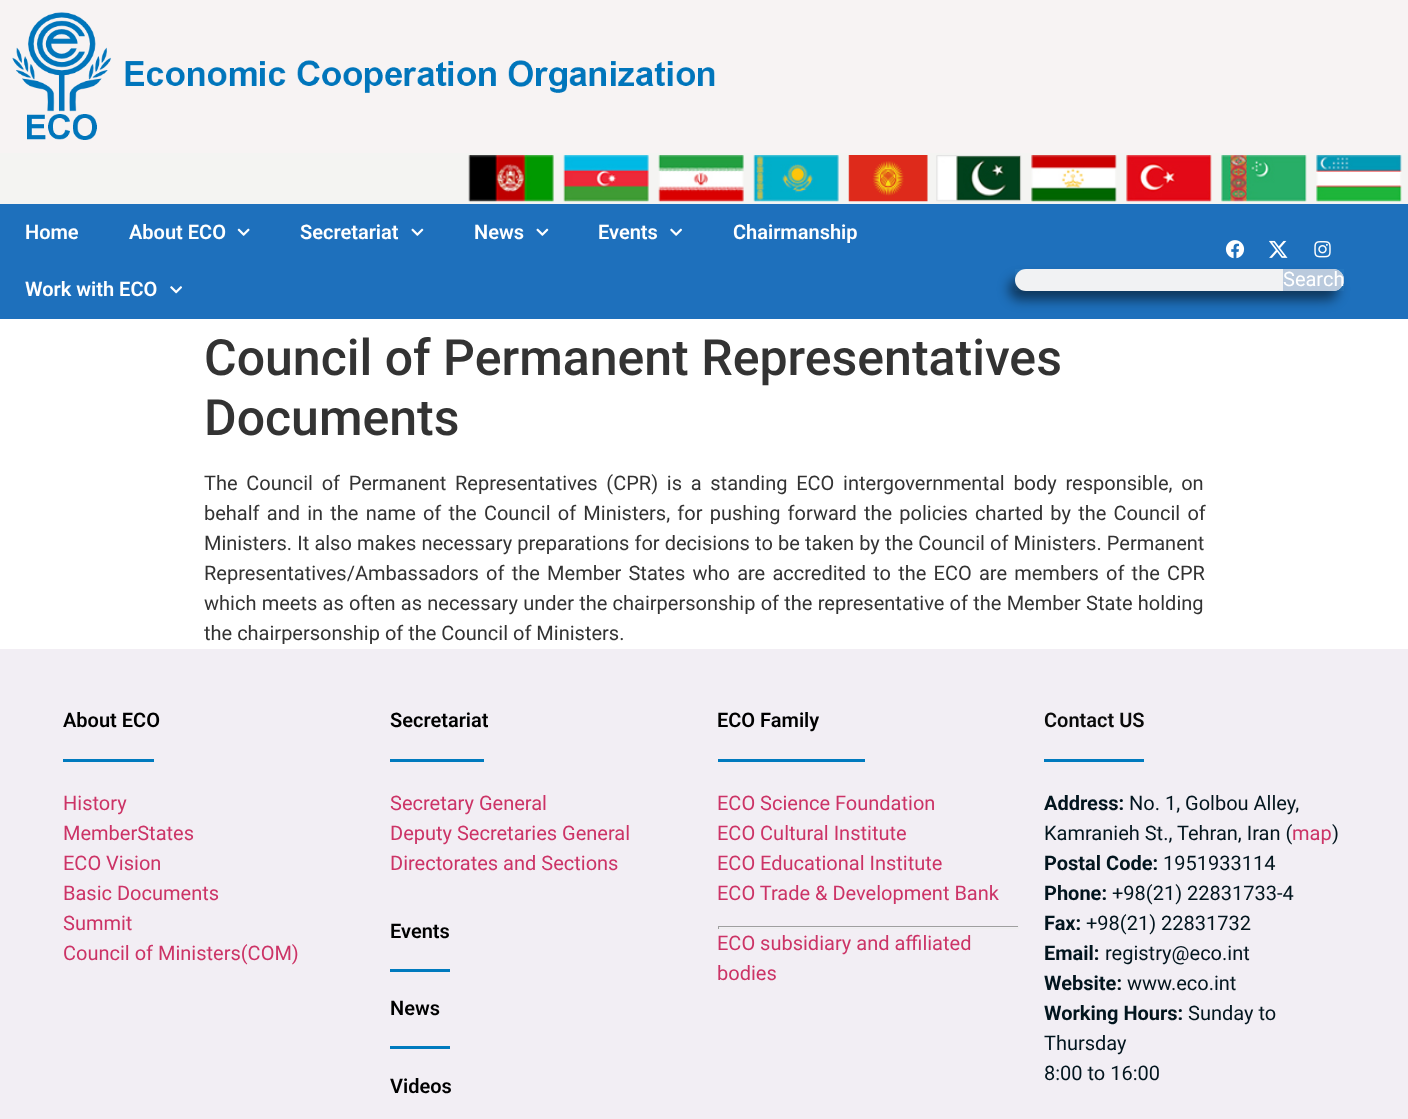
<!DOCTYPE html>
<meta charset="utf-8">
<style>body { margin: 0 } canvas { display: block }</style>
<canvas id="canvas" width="1408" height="1119"></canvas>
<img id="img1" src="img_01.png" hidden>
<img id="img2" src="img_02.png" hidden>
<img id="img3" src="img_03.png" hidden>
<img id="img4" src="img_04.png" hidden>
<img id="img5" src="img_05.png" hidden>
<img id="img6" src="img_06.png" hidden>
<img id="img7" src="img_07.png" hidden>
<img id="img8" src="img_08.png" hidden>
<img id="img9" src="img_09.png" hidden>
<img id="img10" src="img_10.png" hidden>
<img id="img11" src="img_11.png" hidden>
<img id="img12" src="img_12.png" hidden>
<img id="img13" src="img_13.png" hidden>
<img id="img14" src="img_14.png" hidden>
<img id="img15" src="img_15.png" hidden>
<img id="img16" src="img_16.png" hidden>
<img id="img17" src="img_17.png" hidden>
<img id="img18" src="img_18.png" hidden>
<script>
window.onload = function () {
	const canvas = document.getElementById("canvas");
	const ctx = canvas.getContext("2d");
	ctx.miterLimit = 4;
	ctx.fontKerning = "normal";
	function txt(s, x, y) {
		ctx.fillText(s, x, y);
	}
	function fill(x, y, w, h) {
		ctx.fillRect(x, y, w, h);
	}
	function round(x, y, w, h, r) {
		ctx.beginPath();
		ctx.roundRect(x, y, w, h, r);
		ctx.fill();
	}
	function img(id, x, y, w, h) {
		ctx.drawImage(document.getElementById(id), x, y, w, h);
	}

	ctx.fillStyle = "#FFFFFF";
	fill(0, 0, 1408, 1119);
	ctx.fillStyle = "#F7F3F3";
	fill(0, 0, 1408, 153);
	img("img1", 12, 12, 703, 128);
	ctx.fillStyle = "#F4F4F2";
	fill(0, 153, 1408, 51);
	img("img2", 468, 155, 86, 47);
	img("img3", 563, 155, 86, 47);
	img("img4", 658, 155, 86, 47);
	img("img5", 753, 155, 86, 47);
	img("img6", 848, 155, 80, 47);
	img("img7", 936, 155, 86, 47);
	img("img8", 1031, 155, 86, 47);
	img("img9", 1126, 155, 86, 47);
	img("img10", 1221, 155, 86, 47);
	img("img11", 1316, 155, 86, 47);
	ctx.fillStyle = "#1E70BC";
	fill(0, 204, 1408, 115);
	img("img12", 237, 228, 13, 8);
	img("img13", 411, 228, 13, 8);
	img("img13", 536, 228, 13, 8);
	img("img14", 670, 228, 12, 8);
	img("img15", 170, 286, 12, 8);
	img("img16", 1225, 240, 20, 19);
	img("img17", 1269, 240, 19, 18);
	img("img18", 1314, 241, 17, 17);
	ctx.fillStyle = "#2577C0";
	fill(1015, 269, 329, 22);
	ctx.fillStyle = "rgba(0, 0, 0, 0.5)";
	ctx.filter = "blur(6px)";
	ctx.beginPath();
	ctx.roundRect(1009, 278, 329, 22, 11);
	ctx.fill();
	ctx.filter = "none";
	ctx.fillStyle = "#F1F2F3";
	round(1015, 269, 329, 22, 11);
	ctx.fillStyle = "#BACADD";
	ctx.beginPath();
	ctx.roundRect(1283, 269, 61, 22, [0, 11, 11, 0]);
	ctx.fill();
	ctx.fillStyle = "#F2EEF4";
	fill(0, 649, 1408, 470);
	ctx.fillStyle = "#007ABE";
	fill(63, 759, 91, 3);
	fill(390, 759, 94, 3);
	fill(390, 969, 60, 3);
	fill(390, 1046, 60, 3);
	fill(718, 759, 147, 3);
	ctx.fillStyle = "#9F9F9F";
	fill(718, 926, 301, 1);
	ctx.fillStyle = "#EEEEEE";
	fill(1018, 926, 1, 3);
	fill(718, 928, 301, 1);
	ctx.fillStyle = "#9F9F9F";
	fill(718, 926, 1, 3);
	ctx.fillStyle = "#007ABE";
	fill(1044, 759, 100, 3);
	ctx.font = "600 20px Roboto";
	ctx.fillStyle = "#FFFFFF";
	txt("Home", 25, 239);
	txt("About ECO", 129, 239);
	txt("Secretariat", 300, 239);
	txt("News", 474, 239);
	txt("Events", 598, 239);
	txt("Chairmanship", 733, 239);
	txt("Work with ECO", 25, 296);
	ctx.font = "20px Roboto";
	txt("Search", 1283, 286);
	ctx.font = "500 50px Roboto";
	ctx.fillStyle = "#333333";
	txt("Council of Permanent Representatives", 204, 375);
	txt("Documents", 204, 435);
	ctx.wordSpacing = "3.75px";
	ctx.font = "20px Roboto";
	txt("The Council of Permanent Representatives (CPR) is a standing ECO intergovernmental body responsible, on", 204, 490);
	ctx.wordSpacing = "2.25px";
	txt("behalf and in the name of the Council of Ministers, for pushing forward the policies charted by the Council of", 204, 520);
	ctx.wordSpacing = "0.2px";
	txt("Ministers. It also makes necessary preparations for decisions to be taken by the Council of Ministers. Permanent", 204, 550);
	ctx.wordSpacing = "2.25px";
	txt("Representatives/Ambassadors of the Member States who are accredited to the ECO are members of the CPR", 204, 580);
	ctx.wordSpacing = "0.3px";
	txt("which meets as often as necessary under the chairpersonship of the representative of the Member State holding", 204, 610);
	ctx.wordSpacing = "0px";
	txt("the chairpersonship of the Council of Ministers.", 204, 640);
	ctx.font = "600 20px Roboto";
	ctx.fillStyle = "#000000";
	txt("About ECO", 63, 727);
	ctx.font = "20px Roboto";
	ctx.fillStyle = "#CC3366";
	txt("History", 63, 810);
	txt("MemberStates", 63, 840);
	txt("ECO Vision", 63, 870);
	txt("Basic Documents", 63, 900);
	txt("Summit", 63, 930);
	txt("Council of Ministers(COM)", 63, 960);
	ctx.font = "600 20px Roboto";
	ctx.fillStyle = "#000000";
	txt("Secretariat", 390, 727);
	ctx.font = "20px Roboto";
	ctx.fillStyle = "#CC3366";
	txt("Secretary General", 390, 810);
	txt("Deputy Secretaries General", 390, 840);
	txt("Directorates and Sections", 390, 870);
	ctx.font = "600 20px Roboto";
	ctx.fillStyle = "#000000";
	txt("Events", 390, 938);
	txt("News", 390, 1015);
	txt("Videos", 390, 1093);
	txt("ECO Family", 717, 727);
	ctx.font = "20px Roboto";
	ctx.fillStyle = "#CC3366";
	txt("ECO Science Foundation", 717, 810);
	txt("ECO Cultural Institute", 717, 840);
	txt("ECO Educational Institute", 717, 870);
	txt("ECO Trade & Development Bank", 717, 900);
	txt("ECO subsidiary and affiliated", 717, 950);
	txt("bodies", 717, 980);
	ctx.font = "600 20px Roboto";
	ctx.fillStyle = "#0A0A0A";
	txt("Contact US", 1044, 727);
	ctx.font = "bold 20px Roboto";
	ctx.fillStyle = "#02151E";
	txt("Address:", 1044, 810);
	ctx.font = "20px Roboto";
	txt("No. 1, Golbou Alley,", 1129, 810);
	txt("Kamranieh St., Tehran, Iran (", 1044, 840);
	ctx.fillStyle = "#CC3366";
	txt("map", 1292, 840);
	ctx.fillStyle = "#02151E";
	txt(")", 1332, 840);
	ctx.font = "bold 20px Roboto";
	txt("Postal Code:", 1044, 870);
	ctx.font = "20px Roboto";
	txt("1951933114", 1163, 870);
	ctx.font = "bold 20px Roboto";
	txt("Phone:", 1044, 900);
	ctx.font = "20px Roboto";
	txt("+98(21) 22831733-4", 1112, 900);
	ctx.font = "bold 20px Roboto";
	txt("Fax:", 1044, 930);
	ctx.font = "20px Roboto";
	txt("+98(21) 22831732", 1086, 930);
	ctx.font = "bold 20px Roboto";
	txt("Email:", 1044, 960);
	ctx.font = "20px Roboto";
	txt("registry@eco.int", 1105, 960);
	ctx.font = "bold 20px Roboto";
	txt("Website:", 1044, 990);
	ctx.font = "20px Roboto";
	txt("www.eco.int", 1127, 990);
	ctx.font = "bold 20px Roboto";
	txt("Working Hours:", 1044, 1020);
	ctx.font = "20px Roboto";
	txt("Sunday to", 1188, 1020);
	txt("Thursday", 1044, 1050);
	txt("8:00 to 16:00", 1044, 1080);
};
</script>
